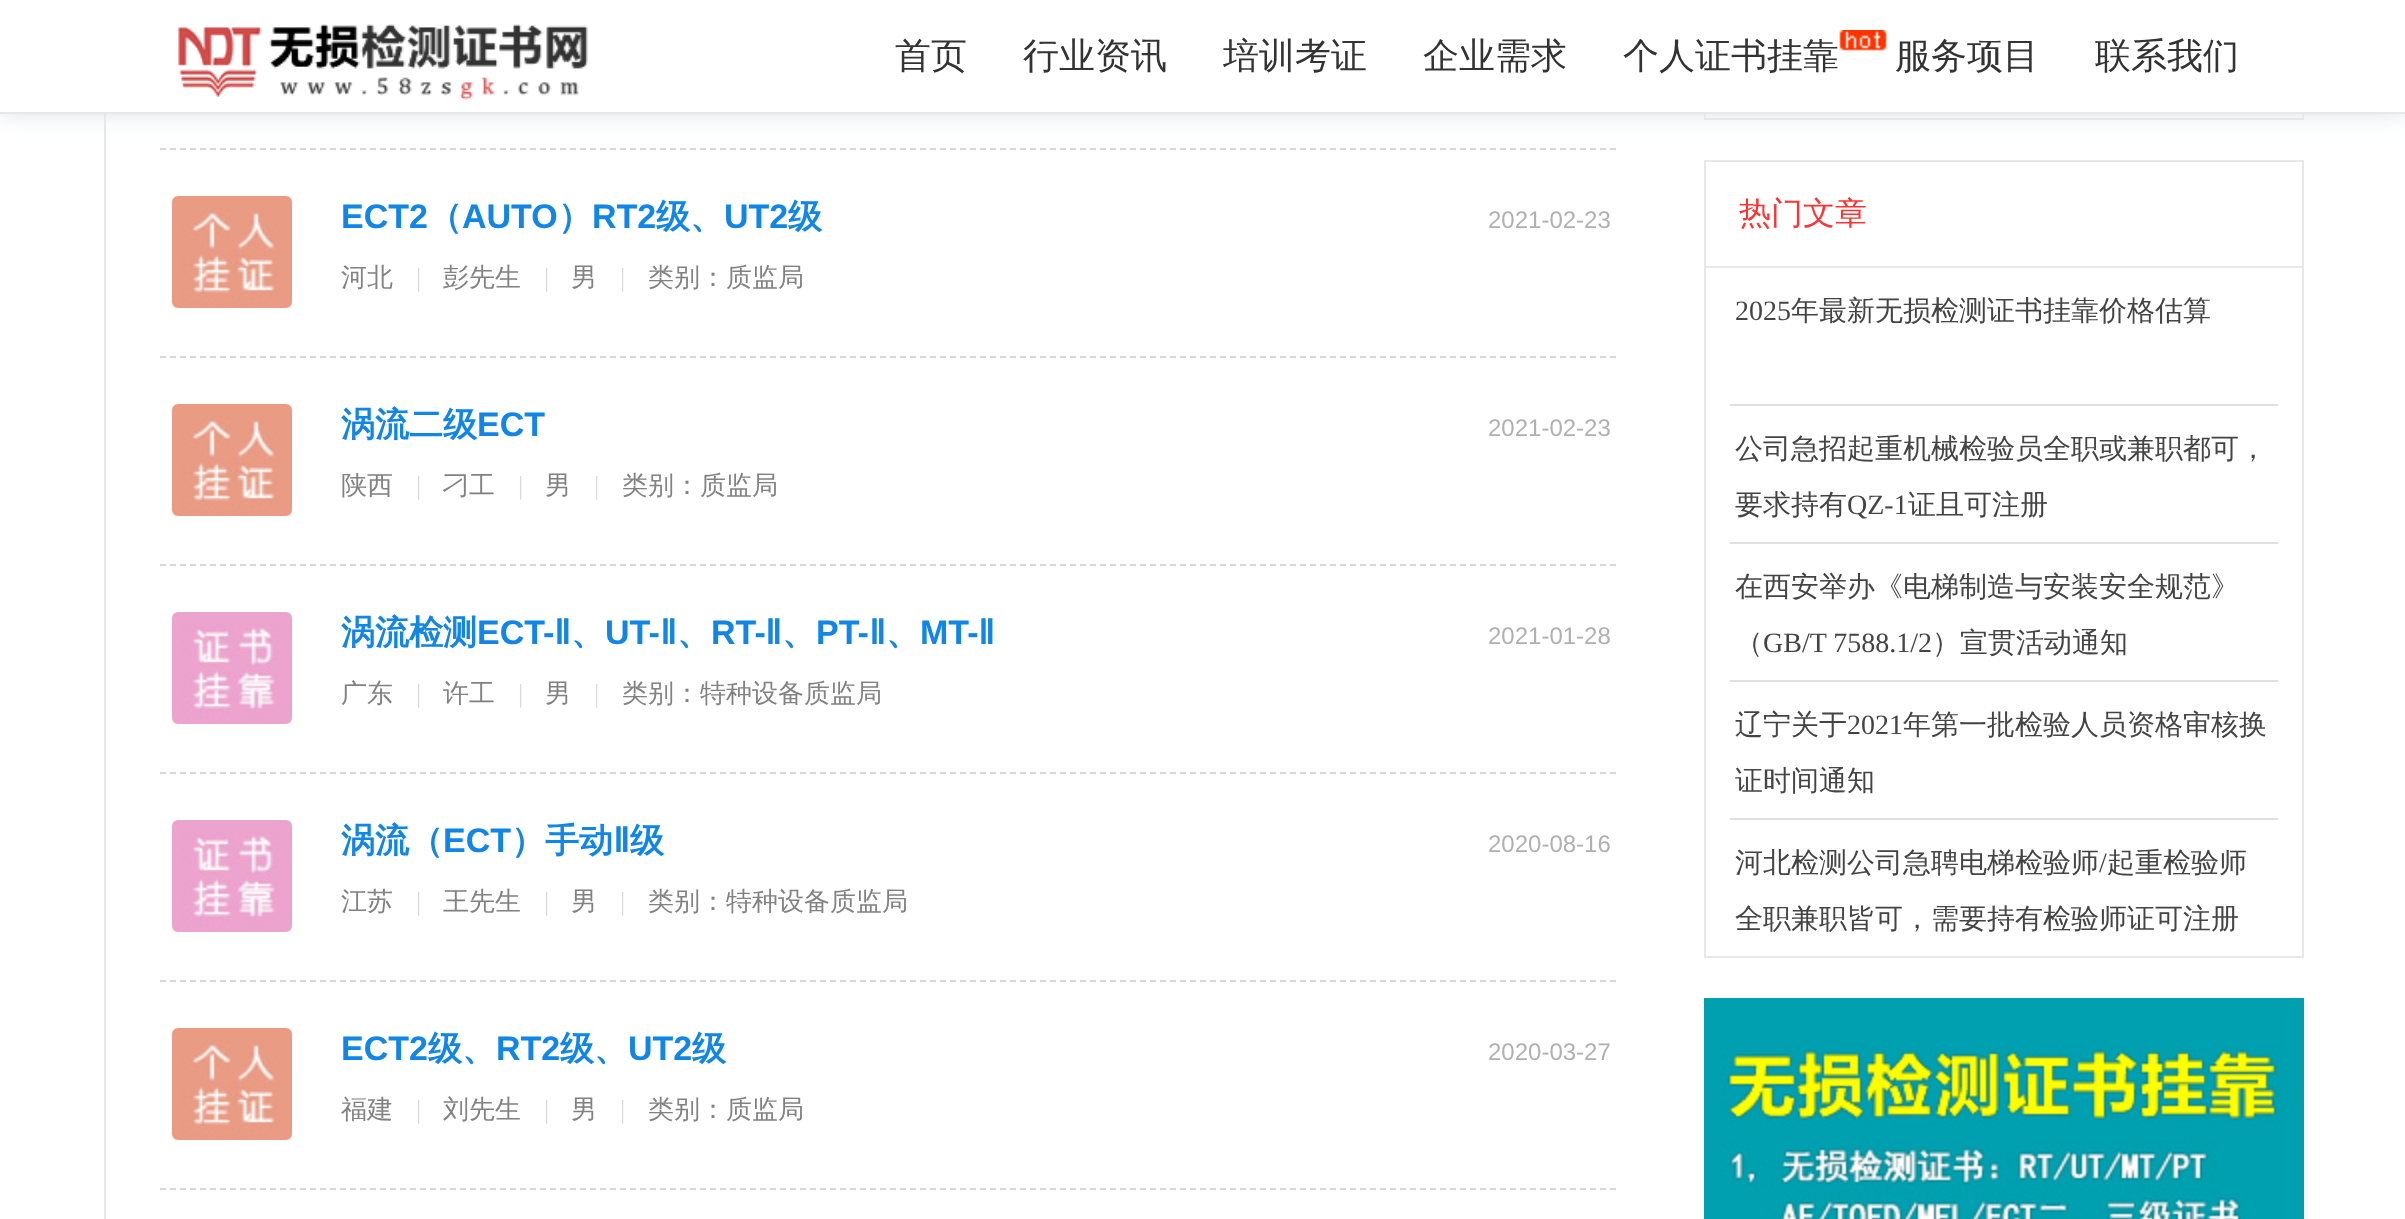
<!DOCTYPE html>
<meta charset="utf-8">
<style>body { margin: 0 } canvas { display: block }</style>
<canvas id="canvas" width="2405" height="1219"></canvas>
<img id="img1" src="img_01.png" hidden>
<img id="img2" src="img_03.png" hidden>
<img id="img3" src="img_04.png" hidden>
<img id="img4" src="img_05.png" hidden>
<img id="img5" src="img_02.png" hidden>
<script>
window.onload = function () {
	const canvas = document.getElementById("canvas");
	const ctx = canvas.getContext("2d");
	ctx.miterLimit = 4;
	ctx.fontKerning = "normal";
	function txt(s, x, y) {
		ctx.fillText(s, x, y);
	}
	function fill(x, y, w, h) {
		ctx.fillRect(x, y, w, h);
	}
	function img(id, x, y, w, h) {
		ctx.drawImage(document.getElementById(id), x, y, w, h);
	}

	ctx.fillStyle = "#FFFFFF";
	fill(0, 0, 2405, 1219);
	ctx.save();
	ctx.beginPath();
	ctx.rect(104, 0, 1560, 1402);
	ctx.clip();
	ctx.strokeStyle = "#E8E8E8";
	ctx.lineWidth = 2;
	ctx.strokeRect(105, -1, 1562, 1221);
	ctx.restore();
	ctx.strokeStyle = "#E8E8E8";
	ctx.lineWidth = 2;
	ctx.strokeRect(1705, -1, 598, 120);
	ctx.fillStyle = "#E1E7EC";
	ctx.filter = "blur(10px)";
	ctx.beginPath();
	ctx.rect(0, -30, 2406, 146);
	ctx.fill();
	ctx.filter = "none";
	ctx.fillStyle = "#FFFFFF";
	fill(0, 0, 2405, 112);
	ctx.fillStyle = "#E8E8E8";
	fill(0, 112, 2405, 2);
	img("img1", 178, 24, 411, 76);
	ctx.beginPath();
	ctx.moveTo(160, 149);
	ctx.lineTo(1616, 149);
	ctx.strokeStyle = "#D7D7D7";
	ctx.setLineDash([6, 4]);
	ctx.stroke();
	ctx.beginPath();
	ctx.moveTo(160, 357);
	ctx.lineTo(1616, 357);
	ctx.stroke();
	img("img2", 172, 196, 120, 112);
	ctx.beginPath();
	ctx.moveTo(160, 565);
	ctx.lineTo(1616, 565);
	ctx.stroke();
	img("img2", 172, 404, 120, 112);
	ctx.beginPath();
	ctx.moveTo(160, 773);
	ctx.lineTo(1616, 773);
	ctx.stroke();
	img("img3", 172, 612, 120, 112);
	ctx.beginPath();
	ctx.moveTo(160, 981);
	ctx.lineTo(1616, 981);
	ctx.stroke();
	img("img3", 172, 820, 120, 112);
	ctx.beginPath();
	ctx.moveTo(160, 1189);
	ctx.lineTo(1616, 1189);
	ctx.stroke();
	img("img2", 172, 1028, 120, 112);
	ctx.strokeStyle = "#E8E8E8";
	ctx.setLineDash([]);
	ctx.strokeRect(1705, 161, 598, 796);
	fill(1706, 266, 596, 2);
	ctx.fillStyle = "#E0E0E0";
	fill(1730, 404, 548, 2);
	fill(1730, 542, 548, 2);
	fill(1730, 680, 548, 2);
	fill(1730, 818, 548, 2);
	img("img4", 1704, 998, 600, 221);
	ctx.font = "500 36px WenQuanYi Zen Hei";
	ctx.fillStyle = "#333333";
	txt("首页", 895, 68);
	txt("行业资讯", 1023, 68);
	txt("培训考证", 1223, 68);
	txt("企业需求", 1423, 68);
	txt("个人证书挂靠", 1623, 68);
	img("img5", 1837, 30, 50, 21);
	txt("服务项目", 1895, 68);
	txt("联系我们", 2095, 68);
	ctx.font = "bold 34px Liberation Sans";
	ctx.fillStyle = "#1186E6";
	txt("ECT2", 341, 228);
	ctx.font = "bold 34px WenQuanYi Zen Hei";
	txt("（", 428, 228);
	ctx.font = "bold 34px Liberation Sans";
	txt("AUTO", 462, 228);
	ctx.font = "bold 34px WenQuanYi Zen Hei";
	txt("）", 558, 228);
	ctx.font = "bold 34px Liberation Sans";
	txt("RT2", 592, 228);
	ctx.font = "bold 34px WenQuanYi Zen Hei";
	txt("级、", 656, 228);
	ctx.font = "bold 34px Liberation Sans";
	txt("UT2", 724, 228);
	ctx.font = "bold 34px WenQuanYi Zen Hei";
	txt("级", 788, 228);
	ctx.font = "24px Liberation Sans";
	ctx.fillStyle = "#B0B0B0";
	txt("2021-02-23", 1488, 228);
	ctx.font = "500 26px WenQuanYi Zen Hei";
	ctx.fillStyle = "#828282";
	txt("河北", 341, 286);
	ctx.font = "26px Liberation Serif";
	ctx.fillStyle = "#DADADA";
	txt("|", 416, 286);
	ctx.font = "500 26px WenQuanYi Zen Hei";
	ctx.fillStyle = "#828282";
	txt("彭先生", 443, 286);
	ctx.font = "26px Liberation Serif";
	ctx.fillStyle = "#DADADA";
	txt("|", 544, 286);
	ctx.font = "500 26px WenQuanYi Zen Hei";
	ctx.fillStyle = "#828282";
	txt("男", 571, 286);
	ctx.font = "26px Liberation Serif";
	ctx.fillStyle = "#DADADA";
	txt("|", 620, 286);
	ctx.font = "500 26px WenQuanYi Zen Hei";
	ctx.fillStyle = "#828282";
	txt("类别：质监局", 648, 286);
	ctx.font = "bold 34px WenQuanYi Zen Hei";
	ctx.fillStyle = "#1186E6";
	txt("涡流二级", 341, 436);
	ctx.font = "bold 34px Liberation Sans";
	txt("ECT", 477, 436);
	ctx.font = "24px Liberation Sans";
	ctx.fillStyle = "#B0B0B0";
	txt("2021-02-23", 1488, 436);
	ctx.font = "500 26px WenQuanYi Zen Hei";
	ctx.fillStyle = "#828282";
	txt("陕西", 341, 494);
	ctx.font = "26px Liberation Serif";
	ctx.fillStyle = "#DADADA";
	txt("|", 416, 494);
	ctx.font = "500 26px WenQuanYi Zen Hei";
	ctx.fillStyle = "#828282";
	txt("刁工", 443, 494);
	ctx.font = "26px Liberation Serif";
	ctx.fillStyle = "#DADADA";
	txt("|", 518, 494);
	ctx.font = "500 26px WenQuanYi Zen Hei";
	ctx.fillStyle = "#828282";
	txt("男", 545, 494);
	ctx.font = "26px Liberation Serif";
	ctx.fillStyle = "#DADADA";
	txt("|", 594, 494);
	ctx.font = "500 26px WenQuanYi Zen Hei";
	ctx.fillStyle = "#828282";
	txt("类别：质监局", 622, 494);
	ctx.font = "bold 34px WenQuanYi Zen Hei";
	ctx.fillStyle = "#1186E6";
	txt("涡流检测", 341, 644);
	ctx.font = "bold 34px Liberation Sans";
	txt("ECT-", 477, 644);
	ctx.font = "bold 34px DejaVu Sans";
	txt("Ⅱ", 554, 644);
	ctx.font = "bold 34px Liberation Sans";
	txt("UT-", 605, 644);
	ctx.font = "bold 34px DejaVu Sans";
	txt("Ⅱ", 660, 644);
	ctx.font = "bold 34px Liberation Sans";
	txt("RT-", 711, 644);
	ctx.font = "bold 34px DejaVu Sans";
	txt("Ⅱ", 765, 644);
	ctx.font = "bold 34px Liberation Sans";
	txt("PT-", 816, 644);
	ctx.font = "bold 34px DejaVu Sans";
	txt("Ⅱ", 869, 644);
	ctx.font = "bold 34px Liberation Sans";
	txt("MT-", 920, 644);
	ctx.font = "bold 34px DejaVu Sans";
	txt("Ⅱ", 978, 644);
	ctx.font = "24px Liberation Sans";
	ctx.fillStyle = "#B0B0B0";
	txt("2021-01-28", 1488, 644);
	ctx.font = "500 26px WenQuanYi Zen Hei";
	ctx.fillStyle = "#828282";
	txt("广东", 341, 702);
	ctx.font = "26px Liberation Serif";
	ctx.fillStyle = "#DADADA";
	txt("|", 416, 702);
	ctx.font = "500 26px WenQuanYi Zen Hei";
	ctx.fillStyle = "#828282";
	txt("许工", 443, 702);
	ctx.font = "26px Liberation Serif";
	ctx.fillStyle = "#DADADA";
	txt("|", 518, 702);
	ctx.font = "500 26px WenQuanYi Zen Hei";
	ctx.fillStyle = "#828282";
	txt("男", 545, 702);
	ctx.font = "26px Liberation Serif";
	ctx.fillStyle = "#DADADA";
	txt("|", 594, 702);
	ctx.font = "500 26px WenQuanYi Zen Hei";
	ctx.fillStyle = "#828282";
	txt("类别：特种设备质监局", 622, 702);
	ctx.font = "bold 34px WenQuanYi Zen Hei";
	ctx.fillStyle = "#1186E6";
	txt("、", 571, 644);
	txt("、", 677, 644);
	txt("、", 782, 644);
	txt("、", 886, 644);
	txt("涡流（", 341, 852);
	ctx.font = "bold 34px Liberation Sans";
	txt("ECT", 443, 852);
	ctx.font = "bold 34px WenQuanYi Zen Hei";
	txt("）手动", 511, 852);
	ctx.font = "bold 34px DejaVu Sans";
	txt("Ⅱ", 613, 852);
	ctx.font = "bold 34px WenQuanYi Zen Hei";
	txt("级", 630, 852);
	ctx.font = "24px Liberation Sans";
	ctx.fillStyle = "#B0B0B0";
	txt("2020-08-16", 1488, 852);
	ctx.font = "500 26px WenQuanYi Zen Hei";
	ctx.fillStyle = "#828282";
	txt("江苏", 341, 910);
	ctx.font = "26px Liberation Serif";
	ctx.fillStyle = "#DADADA";
	txt("|", 416, 910);
	ctx.font = "500 26px WenQuanYi Zen Hei";
	ctx.fillStyle = "#828282";
	txt("王先生", 443, 910);
	ctx.font = "26px Liberation Serif";
	ctx.fillStyle = "#DADADA";
	txt("|", 544, 910);
	ctx.font = "500 26px WenQuanYi Zen Hei";
	ctx.fillStyle = "#828282";
	txt("男", 571, 910);
	ctx.font = "26px Liberation Serif";
	ctx.fillStyle = "#DADADA";
	txt("|", 620, 910);
	ctx.font = "500 26px WenQuanYi Zen Hei";
	ctx.fillStyle = "#828282";
	txt("类别：特种设备质监局", 648, 910);
	ctx.font = "bold 34px Liberation Sans";
	ctx.fillStyle = "#1186E6";
	txt("ECT2", 341, 1060);
	ctx.font = "bold 34px WenQuanYi Zen Hei";
	txt("级、", 428, 1060);
	ctx.font = "bold 34px Liberation Sans";
	txt("RT2", 496, 1060);
	ctx.font = "bold 34px WenQuanYi Zen Hei";
	txt("级、", 560, 1060);
	ctx.font = "bold 34px Liberation Sans";
	txt("UT2", 628, 1060);
	ctx.font = "bold 34px WenQuanYi Zen Hei";
	txt("级", 692, 1060);
	ctx.font = "24px Liberation Sans";
	ctx.fillStyle = "#B0B0B0";
	txt("2020-03-27", 1488, 1060);
	ctx.font = "500 26px WenQuanYi Zen Hei";
	ctx.fillStyle = "#828282";
	txt("福建", 341, 1118);
	ctx.font = "26px Liberation Serif";
	ctx.fillStyle = "#DADADA";
	txt("|", 416, 1118);
	ctx.font = "500 26px WenQuanYi Zen Hei";
	ctx.fillStyle = "#828282";
	txt("刘先生", 443, 1118);
	ctx.font = "26px Liberation Serif";
	ctx.fillStyle = "#DADADA";
	txt("|", 544, 1118);
	ctx.font = "500 26px WenQuanYi Zen Hei";
	ctx.fillStyle = "#828282";
	txt("男", 571, 1118);
	ctx.font = "26px Liberation Serif";
	ctx.fillStyle = "#DADADA";
	txt("|", 620, 1118);
	ctx.font = "500 26px WenQuanYi Zen Hei";
	ctx.fillStyle = "#828282";
	txt("类别：质监局", 648, 1118);
	ctx.font = "500 32px WenQuanYi Zen Hei";
	ctx.fillStyle = "#FF3333";
	txt("热门文章", 1739, 224);
	ctx.font = "28px Liberation Serif";
	ctx.fillStyle = "#444444";
	txt("2025", 1735, 320);
	ctx.font = "500 28px WenQuanYi Zen Hei";
	txt("年最新无损检测证书挂靠价格估算", 1791, 320);
	txt("公司急招起重机械检验员全职或兼职都可，", 1735, 458);
	txt("要求持有", 1735, 514);
	ctx.font = "28px Liberation Serif";
	txt("QZ-1", 1847, 514);
	ctx.font = "500 28px WenQuanYi Zen Hei";
	txt("证且可注册", 1908, 514);
	txt("在西安举办《电梯制造与安装安全规范》", 1735, 596);
	txt("（", 1735, 652);
	ctx.font = "28px Liberation Serif";
	txt("GB/T 7588.1/2", 1763, 652);
	ctx.font = "500 28px WenQuanYi Zen Hei";
	txt("）宣贯活动通知", 1932, 652);
	txt("辽宁关于", 1735, 734);
	ctx.font = "28px Liberation Serif";
	txt("2021", 1847, 734);
	ctx.font = "500 28px WenQuanYi Zen Hei";
	txt("年第一批检验人员资格审核换", 1903, 734);
	txt("证时间通知", 1735, 790);
	txt("河北检测公司急聘电梯检验师", 1735, 872);
	ctx.font = "28px Liberation Serif";
	txt("/", 2099, 872);
	ctx.font = "500 28px WenQuanYi Zen Hei";
	txt("起重检验师", 2107, 872);
	txt("全职兼职皆可，需要持有检验师证可注册", 1735, 928);
};
</script>
